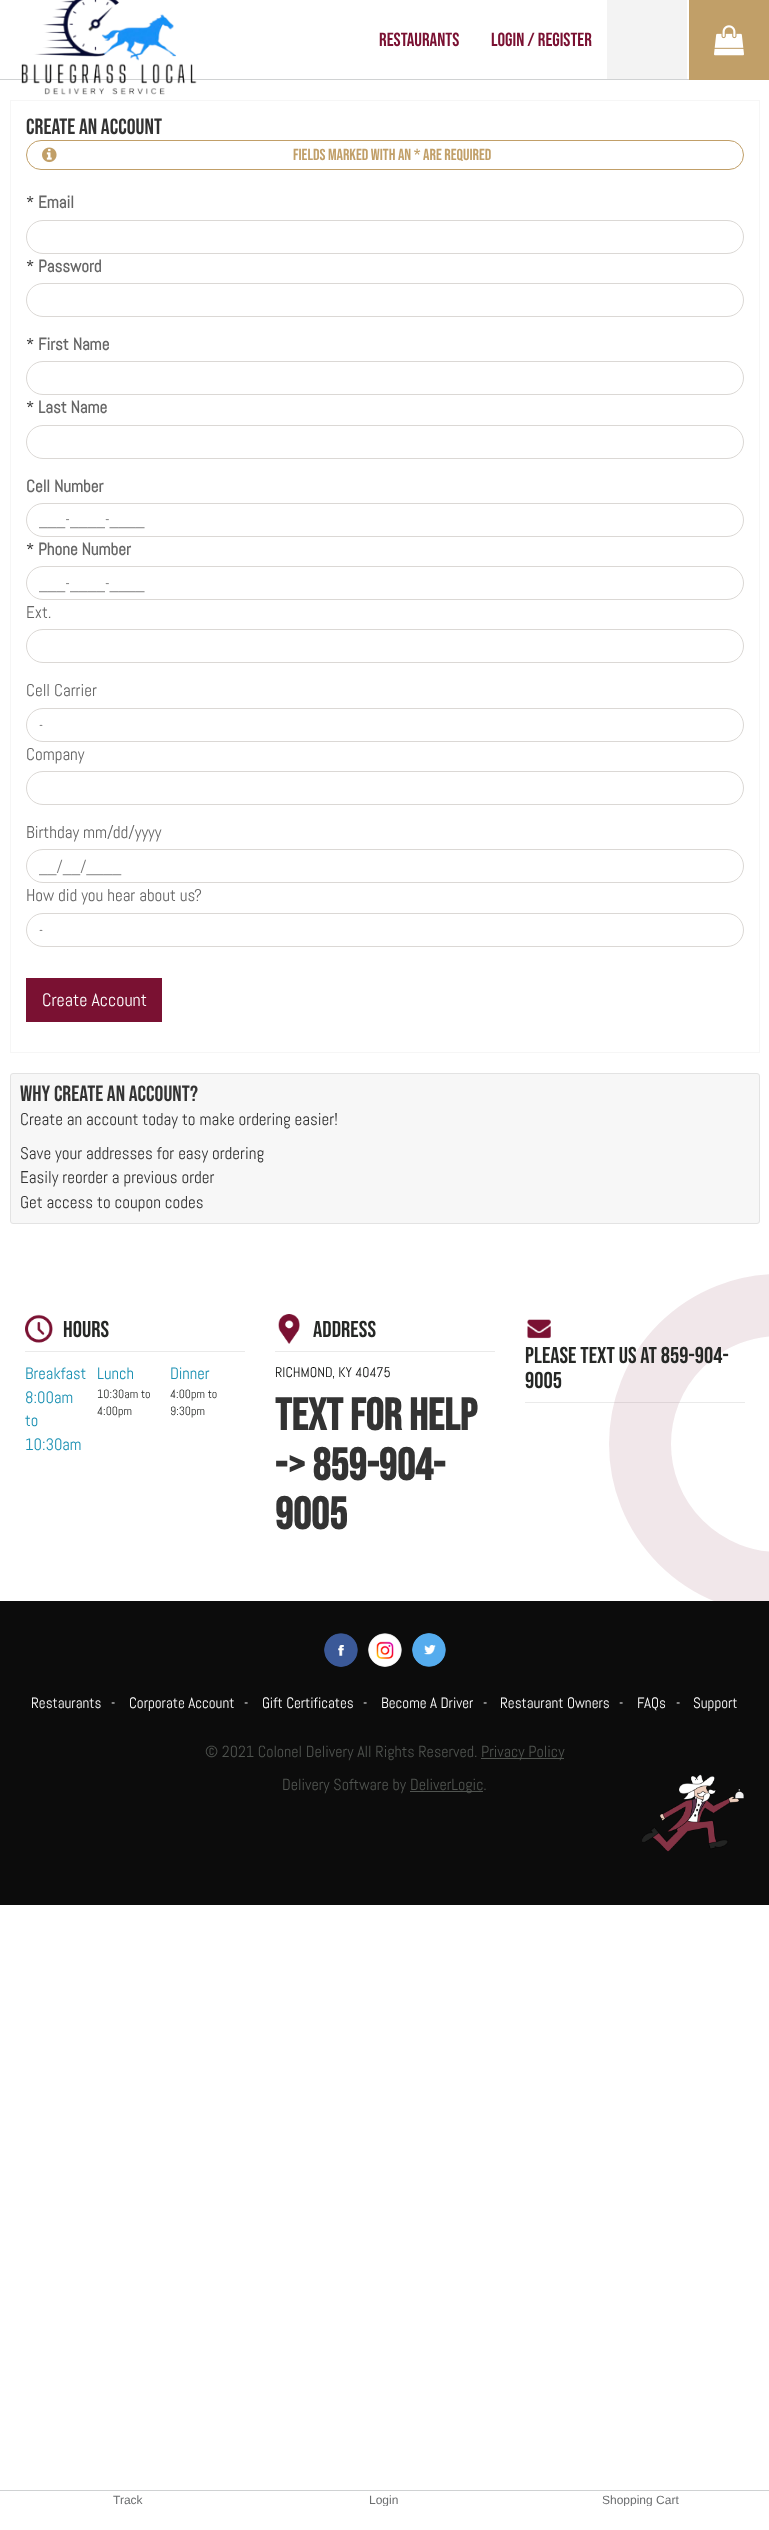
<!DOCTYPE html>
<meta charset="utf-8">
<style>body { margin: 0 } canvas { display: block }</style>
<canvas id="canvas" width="769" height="2530"></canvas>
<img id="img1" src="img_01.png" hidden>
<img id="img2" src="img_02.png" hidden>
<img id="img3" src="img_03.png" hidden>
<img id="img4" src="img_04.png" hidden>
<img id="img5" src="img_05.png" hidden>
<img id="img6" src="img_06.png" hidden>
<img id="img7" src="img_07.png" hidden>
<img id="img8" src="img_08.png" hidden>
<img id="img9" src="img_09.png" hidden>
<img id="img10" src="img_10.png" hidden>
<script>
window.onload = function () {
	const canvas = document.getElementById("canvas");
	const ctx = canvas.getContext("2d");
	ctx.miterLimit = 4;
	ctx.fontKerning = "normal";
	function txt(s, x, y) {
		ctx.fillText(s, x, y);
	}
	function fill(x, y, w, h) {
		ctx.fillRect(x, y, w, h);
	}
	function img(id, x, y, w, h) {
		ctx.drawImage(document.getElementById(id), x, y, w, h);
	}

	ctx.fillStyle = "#FFFFFF";
	fill(0, 0, 769, 2530);
	ctx.fillStyle = "#D0D2D3";
	fill(0, 79, 689, 1);
	img("img1", 21, 0, 176, 95);
	ctx.fillStyle = "#F3F3F3";
	fill(607, 0, 80, 79);
	ctx.fillStyle = "#C19F68";
	fill(689, 0, 80, 80);
	img("img2", 714, 25, 30, 31);
	ctx.strokeStyle = "#F6F6F6";
	ctx.strokeRect(10.5, 100.5, 749, 952);
	ctx.beginPath();
	ctx.roundRect(26.5, 140.5, 717, 29, 14.5);
	ctx.strokeStyle = "#C19F68";
	ctx.stroke();
	img("img3", 42, 147, 15, 16);
	ctx.beginPath();
	ctx.roundRect(26.5, 220.5, 717, 33, 16.5);
	ctx.strokeStyle = "#DBD8D5";
	ctx.stroke();
	ctx.beginPath();
	ctx.roundRect(26.5, 283.5, 717, 33, 16.5);
	ctx.stroke();
	ctx.beginPath();
	ctx.roundRect(26.5, 361.5, 717, 33, 16.5);
	ctx.stroke();
	ctx.beginPath();
	ctx.roundRect(26.5, 425.5, 717, 33, 16.5);
	ctx.stroke();
	ctx.beginPath();
	ctx.roundRect(26.5, 503.5, 717, 33, 16.5);
	ctx.stroke();
	ctx.beginPath();
	ctx.roundRect(26.5, 566.5, 717, 33, 16.5);
	ctx.stroke();
	ctx.beginPath();
	ctx.roundRect(26.5, 629.5, 717, 33, 16.5);
	ctx.stroke();
	ctx.beginPath();
	ctx.roundRect(26.5, 708.5, 717, 33, 16.5);
	ctx.stroke();
	ctx.beginPath();
	ctx.roundRect(26.5, 771.5, 717, 33, 16.5);
	ctx.stroke();
	ctx.beginPath();
	ctx.roundRect(26.5, 849.5, 717, 33, 16.5);
	ctx.stroke();
	ctx.beginPath();
	ctx.roundRect(26.5, 913.5, 717, 33, 16.5);
	ctx.stroke();
	ctx.fillStyle = "#7A1132";
	fill(26, 978, 136, 44);
	ctx.fillStyle = "#F7F7F7";
	ctx.beginPath();
	ctx.roundRect(10.5, 1073.5, 749, 150, 2.5);
	ctx.fill();
	ctx.strokeStyle = "#E3E3E3";
	ctx.stroke();
	ctx.fillStyle = "#EAEAEA";
	fill(25, 1351, 220, 1);
	img("img4", 25, 1314, 28, 29);
	fill(275, 1351, 220, 1);
	img("img5", 278, 1314, 22, 30);
	fill(525, 1402, 220, 1);
	img("img6", 527, 1319, 24, 20);
	ctx.beginPath();
	ctx.arc(779, 1444, 139, 0, Math.PI * 2);
	ctx.strokeStyle = "rgba(122, 17, 50, 0.1)";
	ctx.lineWidth = 62;
	ctx.stroke();
	ctx.fillStyle = "#0C0C0C";
	fill(0, 1601, 769, 304);
	img("img7", 324, 1633, 34, 34);
	img("img8", 368, 1633, 34, 34);
	img("img9", 412, 1633, 34, 34);
	ctx.fillStyle = "#505450";
	fill(481, 1758, 83, 1);
	fill(410, 1791, 73, 1);
	img("img10", 642, 1774, 102, 78);
	ctx.fillStyle = "#D0D2D3";
	fill(0, 2490, 769, 1);
	ctx.font = "19px Bebas Neue";
	ctx.fillStyle = "#7A1132";
	txt("Restaurants", 379, 46);
	txt("Login / Register", 491, 46);
	ctx.letterSpacing = "0.05px";
	ctx.font = "22px Bebas Neue";
	ctx.fillStyle = "#333333";
	txt("Create an account", 26, 134);
	ctx.letterSpacing = "0px";
	ctx.font = "16px Bebas Neue";
	ctx.fillStyle = "#C19F68";
	txt("Fields marked with an * are required", 293, 160);
	ctx.font = "17px Abel";
	ctx.fillStyle = "#333333";
	txt("*", 26, 208);
	ctx.font = "bold 17px Abel";
	ctx.fillStyle = "#666666";
	txt("Email", 38, 208);
	ctx.font = "17px Abel";
	ctx.fillStyle = "#333333";
	txt("*", 26, 272);
	ctx.font = "bold 17px Abel";
	ctx.fillStyle = "#666666";
	txt("Password", 38, 272);
	ctx.font = "17px Abel";
	ctx.fillStyle = "#333333";
	txt("*", 26, 350);
	ctx.font = "bold 17px Abel";
	ctx.fillStyle = "#666666";
	txt("First Name", 38, 350);
	ctx.font = "17px Abel";
	ctx.fillStyle = "#333333";
	txt("*", 26, 413);
	ctx.font = "bold 17px Abel";
	ctx.fillStyle = "#666666";
	txt("Last Name", 38, 413);
	txt("Cell Number", 26, 492);
	ctx.font = "16px Abel";
	ctx.fillStyle = "#777777";
	txt("___-____-____", 39, 525);
	ctx.font = "17px Abel";
	ctx.fillStyle = "#333333";
	txt("*", 26, 555);
	ctx.font = "bold 17px Abel";
	ctx.fillStyle = "#666666";
	txt("Phone Number", 38, 555);
	ctx.font = "16px Abel";
	ctx.fillStyle = "#777777";
	txt("___-____-____", 39, 589);
	ctx.font = "17px Abel";
	ctx.fillStyle = "#666666";
	txt("Ext.", 26, 618);
	txt("Cell Carrier", 26, 696);
	ctx.font = "14px Abel";
	ctx.fillStyle = "#606060";
	txt("-", 39, 730);
	ctx.font = "17px Abel";
	ctx.fillStyle = "#666666";
	txt("Company", 26, 760);
	txt("Birthday mm/dd/yyyy", 26, 838);
	ctx.font = "16px Abel";
	ctx.fillStyle = "#777777";
	txt("__/__/____", 39, 872);
	ctx.font = "17px Abel";
	ctx.fillStyle = "#666666";
	txt("How did you hear about us?", 26, 901);
	ctx.font = "14px Abel";
	ctx.fillStyle = "#606060";
	txt("-", 39, 935);
	ctx.font = "18px Abel";
	ctx.fillStyle = "#FFFFFF";
	txt("Create Account", 42, 1006);
	ctx.letterSpacing = "0.05px";
	ctx.font = "22px Bebas Neue";
	ctx.fillStyle = "#333333";
	txt("Why create an account?", 20, 1101);
	ctx.letterSpacing = "0px";
	ctx.font = "17px Abel";
	txt("Create an account today to make ordering easier!", 20, 1125);
	txt("Save your addresses for easy ordering", 20, 1159);
	txt("Easily reorder a previous order", 20, 1183);
	txt("Get access to coupon codes", 20, 1208);
	ctx.letterSpacing = "0.05px";
	ctx.font = "23px Bebas Neue";
	ctx.fillStyle = "#262826";
	txt("Hours", 63, 1337);
	ctx.letterSpacing = "0px";
	ctx.font = "16.5px Abel";
	ctx.fillStyle = "#1C91B3";
	txt("Breakfast", 25, 1379);
	txt("8:00am", 25, 1403);
	txt("to", 25, 1426);
	txt("10:30am", 25, 1450);
	txt("Lunch", 97, 1379);
	ctx.font = "12px Abel";
	ctx.fillStyle = "#262826";
	txt("10:30am to", 97, 1398);
	txt("4:00pm", 97, 1415);
	ctx.font = "16.5px Abel";
	ctx.fillStyle = "#1C91B3";
	txt("Dinner", 170, 1379);
	ctx.font = "12px Abel";
	ctx.fillStyle = "#262826";
	txt("4:00pm to", 170, 1398);
	txt("9:30pm", 170, 1415);
	ctx.letterSpacing = "0.05px";
	ctx.font = "23px Bebas Neue";
	txt("Address", 313, 1337);
	ctx.letterSpacing = "0px";
	ctx.font = "14px Abel";
	ctx.fillStyle = "#0A0B0A";
	txt("RICHMOND, KY 40475", 275, 1377);
	ctx.letterSpacing = "0.05px";
	ctx.font = "bold 45px Bebas Neue";
	ctx.fillStyle = "#333333";
	txt("TEXT FOR HELP", 275, 1430);
	txt("-> 859-904-", 275, 1480);
	txt("9005", 275, 1529);
	ctx.font = "23px Bebas Neue";
	ctx.fillStyle = "#262826";
	txt("PLEASE TEXT US AT 859-904-", 525, 1363);
	txt("9005", 525, 1388);
	ctx.letterSpacing = "0px";
	ctx.font = "15px Abel";
	ctx.fillStyle = "#FFFFFF";
	txt("Restaurants", 31, 1708);
	txt("-", 111, 1708);
	txt("Corporate Account", 129, 1708);
	txt("-", 244, 1708);
	txt("Gift Certificates", 262, 1708);
	txt("-", 363, 1708);
	txt("Become A Driver", 381, 1708);
	txt("-", 483, 1708);
	txt("Restaurant Owners", 500, 1708);
	txt("-", 619, 1708);
	txt("FAQs", 637, 1708);
	txt("-", 676, 1708);
	txt("Support", 693, 1708);
	ctx.font = "16px Abel";
	ctx.fillStyle = "#505450";
	txt("© 2021 Colonel Delivery All Rights Reserved.", 205, 1757);
	txt("Privacy Policy", 481, 1757);
	txt("Delivery Software by", 282, 1790);
	txt("DeliverLogic.", 410, 1790);
	ctx.font = "12px Liberation Sans";
	ctx.fillStyle = "#6C6E70";
	txt("Track", 113, 2504);
	ctx.save();
	ctx.beginPath();
	ctx.rect(262, 2494, 244, 12);
	ctx.clip();
	txt("Login", 369, 2504);
	ctx.restore();
	ctx.save();
	ctx.beginPath();
	ctx.rect(512, 2494, 256, 12);
	ctx.clip();
	txt("Shopping Cart", 602, 2504);
	ctx.restore();
};
</script>
